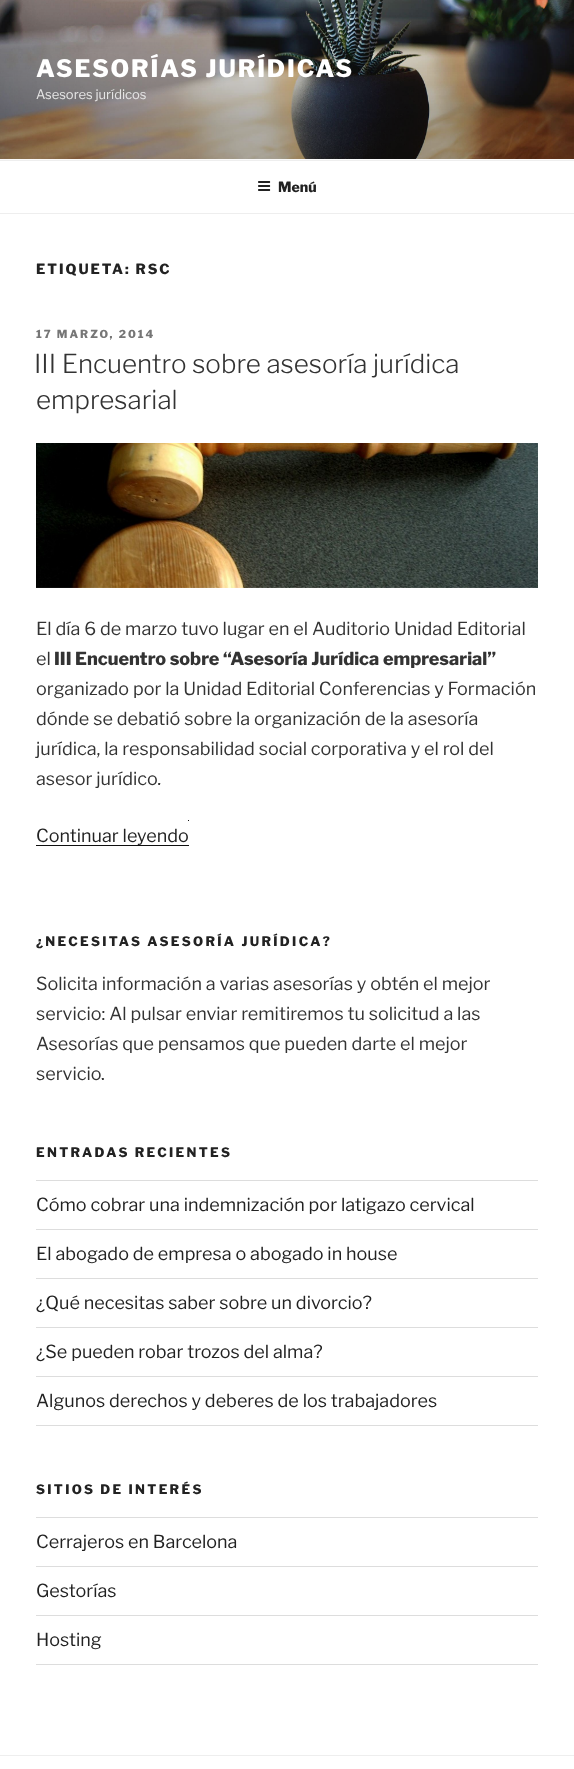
<!DOCTYPE html>
<meta charset="utf-8">
<style>body { margin: 0 } canvas { display: block }</style>
<canvas id="canvas" width="574" height="1769"></canvas>
<img id="img1" src="img_01.png" hidden>
<img id="img2" src="img_02.png" hidden>
<img id="img3" src="img_03.png" hidden>
<script>
window.onload = function () {
	const canvas = document.getElementById("canvas");
	const ctx = canvas.getContext("2d");
	ctx.miterLimit = 4;
	ctx.fontKerning = "normal";
	function txt(s, x, y) {
		ctx.fillText(s, x, y);
	}
	function fill(x, y, w, h) {
		ctx.fillRect(x, y, w, h);
	}
	function img(id, x, y, w, h) {
		ctx.drawImage(document.getElementById(id), x, y, w, h);
	}

	ctx.fillStyle = "#FFFFFF";
	fill(0, 0, 574, 1769);
	ctx.fillStyle = "#FAFAFA";
	fill(0, 159, 574, 1);
	img("img1", 0, 0, 574, 159);
	ctx.fillStyle = "#EEEEEE";
	fill(0, 160, 574, 1);
	fill(0, 213, 574, 1);
	img("img2", 258, 181, 13, 10);
	img("img3", 36, 443, 502, 145);
	ctx.fillStyle = "#0F0F0F";
	fill(36, 845, 153, 1);
	fill(188, 820, 1, 1);
	ctx.fillStyle = "#DDDDDD";
	fill(36, 1180, 502, 1);
	fill(36, 1229, 502, 1);
	fill(36, 1278, 502, 1);
	fill(36, 1327, 502, 1);
	fill(36, 1376, 502, 1);
	fill(36, 1425, 502, 1);
	fill(36, 1517, 502, 1);
	fill(36, 1566, 502, 1);
	fill(36, 1615, 502, 1);
	fill(36, 1664, 502, 1);
	ctx.fillStyle = "#EEEEEE";
	fill(0, 1755, 574, 1);
	ctx.letterSpacing = "1.9px";
	ctx.font = "100 24px Libre Franklin";
	ctx.fillStyle = "#FFFFFF";
	txt("ASESORÍAS JURÍDICAS", 36, 77);
	ctx.letterSpacing = "0px";
	ctx.font = "100 13px 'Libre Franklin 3'";
	ctx.fillStyle = "#E5E5E5";
	txt("Asesores jurídicos", 36, 99);
	ctx.font = "100 14px Libre Franklin";
	ctx.fillStyle = "#222222";
	txt("Menú", 278, 192);
	ctx.letterSpacing = "2px";
	txt("ETIQUETA: RSC", 36, 274);
	ctx.font = "100 11px Libre Franklin";
	ctx.fillStyle = "#767676";
	txt("17 MARZO, 2014", 36, 338);
	ctx.letterSpacing = "0px";
	ctx.font = "100 26px 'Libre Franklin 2'";
	ctx.fillStyle = "#333333";
	txt("III Encuentro sobre asesoría jurídica", 34, 373);
	txt("empresarial", 36, 409);
	ctx.font = "100 18px 'Libre Franklin 3'";
	txt("El día 6 de marzo tuvo lugar en el Auditorio Unidad Editorial", 36, 635);
	txt("el", 36, 665);
	ctx.font = "100 18px Libre Franklin";
	txt("III Encuentro sobre “Asesoría Jurídica empresarial”", 54, 665);
	ctx.font = "100 18px 'Libre Franklin 3'";
	txt("organizado por la Unidad Editorial Conferencias y Formación", 36, 695);
	txt("dónde se debatió sobre la organización de la asesoría", 36, 725);
	txt("jurídica, la responsabilidad social corporativa y el rol del", 36, 755);
	txt("asesor jurídico.", 36, 785);
	ctx.fillStyle = "#222222";
	txt("Continuar leyendo", 36, 842);
	ctx.letterSpacing = "2.35px";
	ctx.font = "100 13px Libre Franklin";
	txt("¿NECESITAS ASESORÍA JURÍDICA?", 36, 946);
	ctx.letterSpacing = "0px";
	ctx.font = "100 18px 'Libre Franklin 3'";
	ctx.fillStyle = "#333333";
	txt("Solicita información a varias asesorías y obtén el mejor", 36, 990);
	txt("servicio: Al pulsar enviar remitiremos tu solicitud a las", 36, 1020);
	txt("Asesorías que pensamos que pueden darte el mejor", 36, 1050);
	txt("servicio.", 36, 1080);
	ctx.letterSpacing = "2.35px";
	ctx.font = "100 13px Libre Franklin";
	ctx.fillStyle = "#222222";
	txt("ENTRADAS RECIENTES", 36, 1157);
	ctx.letterSpacing = "0px";
	ctx.font = "100 18px 'Libre Franklin 3'";
	txt("Cómo cobrar una indemnización por latigazo cervical", 36, 1211);
	txt("El abogado de empresa o abogado in house", 36, 1260);
	txt("¿Qué necesitas saber sobre un divorcio?", 36, 1309);
	txt("¿Se pueden robar trozos del alma?", 36, 1358);
	txt("Algunos derechos y deberes de los trabajadores", 36, 1407);
	ctx.letterSpacing = "2.35px";
	ctx.font = "100 13px Libre Franklin";
	txt("SITIOS DE INTERÉS", 36, 1494);
	ctx.letterSpacing = "0px";
	ctx.font = "100 18px 'Libre Franklin 3'";
	txt("Cerrajeros en Barcelona", 36, 1548);
	txt("Gestorías", 36, 1597);
	txt("Hosting", 36, 1646);
};
</script>
